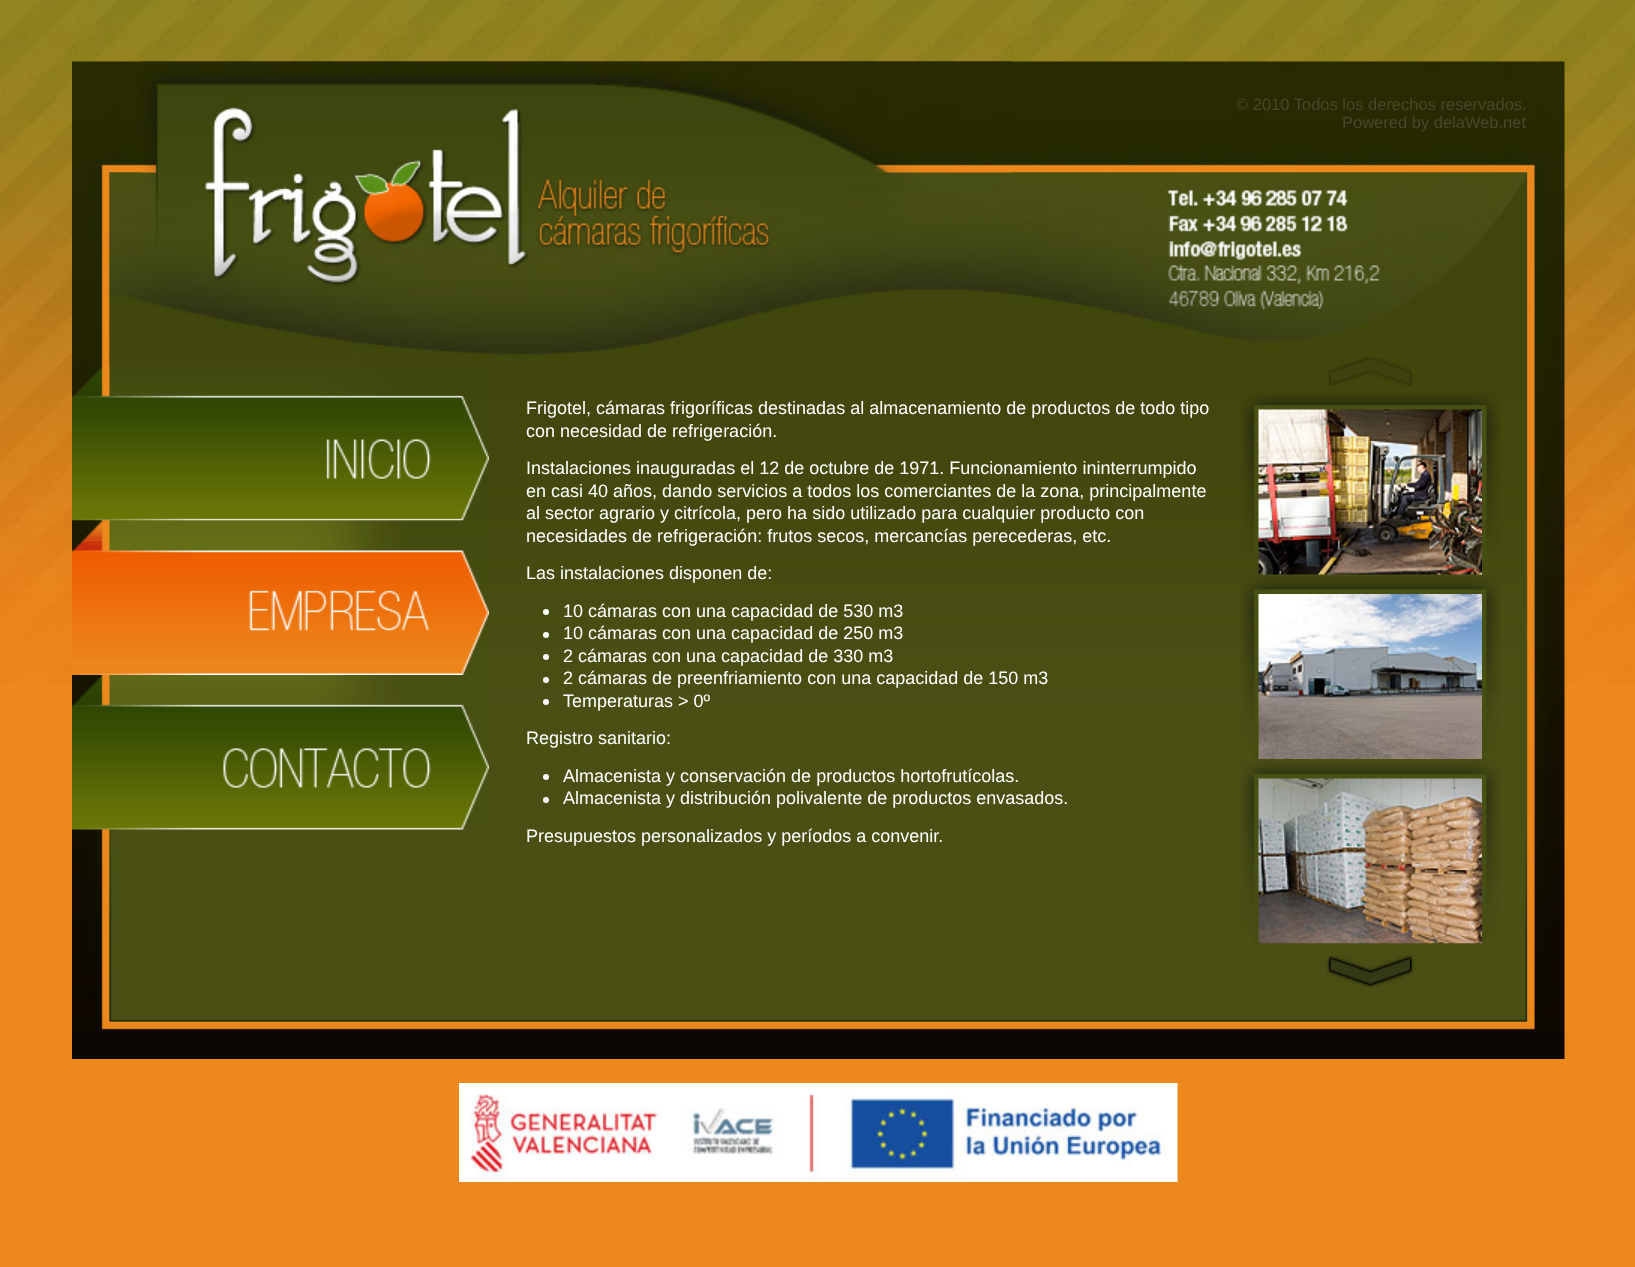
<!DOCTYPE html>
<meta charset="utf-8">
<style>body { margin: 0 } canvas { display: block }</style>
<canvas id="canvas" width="1635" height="1267"></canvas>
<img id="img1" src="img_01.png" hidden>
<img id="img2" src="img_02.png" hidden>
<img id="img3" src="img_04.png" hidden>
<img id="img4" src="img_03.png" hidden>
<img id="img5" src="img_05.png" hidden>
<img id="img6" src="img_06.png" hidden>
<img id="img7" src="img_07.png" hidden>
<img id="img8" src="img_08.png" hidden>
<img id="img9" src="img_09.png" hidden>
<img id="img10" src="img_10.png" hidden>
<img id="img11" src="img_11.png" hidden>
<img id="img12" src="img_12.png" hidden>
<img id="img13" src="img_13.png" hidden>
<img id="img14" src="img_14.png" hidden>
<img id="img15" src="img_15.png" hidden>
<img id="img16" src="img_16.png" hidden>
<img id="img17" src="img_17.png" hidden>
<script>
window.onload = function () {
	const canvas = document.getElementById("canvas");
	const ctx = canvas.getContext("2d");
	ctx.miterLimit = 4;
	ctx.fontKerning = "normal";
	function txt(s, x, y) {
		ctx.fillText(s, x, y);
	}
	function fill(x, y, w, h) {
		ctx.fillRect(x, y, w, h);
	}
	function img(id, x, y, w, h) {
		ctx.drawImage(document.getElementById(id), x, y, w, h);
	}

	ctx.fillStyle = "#EC881C";
	fill(0, 0, 1635, 1267);
	img("img1", 0, 0, 1635, 685);
	img("img2", 72, 61, 1493, 998);
	img("img3", 109, 172, 1418, 850);
	img("img4", 141, 61, 870, 226);
	img("img5", 1167, 190, 213, 119);
	img("img6", 72, 366, 417, 155);
	img("img7", 72, 520, 417, 155);
	img("img8", 72, 675, 417, 155);
	ctx.fillStyle = "#FFFFFF";
	ctx.beginPath();
	ctx.arc(546, 612, 3, 0, Math.PI * 2);
	ctx.fill();
	ctx.beginPath();
	ctx.arc(546, 635, 3, 0, Math.PI * 2);
	ctx.fill();
	ctx.beginPath();
	ctx.arc(546, 657, 3, 0, Math.PI * 2);
	ctx.fill();
	ctx.beginPath();
	ctx.arc(546, 680, 3, 0, Math.PI * 2);
	ctx.fill();
	ctx.beginPath();
	ctx.arc(546, 702, 3, 0, Math.PI * 2);
	ctx.fill();
	ctx.beginPath();
	ctx.arc(546, 777, 3, 0, Math.PI * 2);
	ctx.fill();
	ctx.beginPath();
	ctx.arc(546, 800, 3, 0, Math.PI * 2);
	ctx.fill();
	img("img9", 1328, 357, 84, 29);
	img("img10", 1241, 393, 259, 160);
	img("img11", 1258, 409, 224, 166);
	img("img12", 1241, 576, 259, 183);
	img("img13", 1258, 594, 224, 165);
	img("img14", 1240, 760, 260, 183);
	img("img15", 1258, 778, 224, 166);
	img("img16", 1326, 955, 89, 33);
	img("img17", 459, 1083, 719, 99);
	ctx.font = "16.5px Liberation Sans";
	ctx.fillStyle = "#474A27";
	txt("© 2010 Todos los derechos reservados.", 1236, 110);
	txt("Powered by delaWeb.net", 1342, 128);
	ctx.font = "18px Liberation Sans";
	ctx.fillStyle = "#FFFFFF";
	txt("Frigotel, cámaras frigoríficas destinadas al almacenamiento de productos de todo tipo", 526, 414);
	txt("con necesidad de refrigeración.", 526, 437);
	txt("Instalaciones inauguradas el 12 de octubre de 1971. Funcionamiento ininterrumpido", 526, 474);
	txt("en casi 40 años, dando servicios a todos los comerciantes de la zona, principalmente", 526, 497);
	txt("al sector agrario y citrícola, pero ha sido utilizado para cualquier producto con", 526, 519);
	txt("necesidades de refrigeración: frutos secos, mercancías perecederas, etc.", 526, 542);
	txt("Las instalaciones disponen de:", 526, 579);
	txt("10 cámaras con una capacidad de 530 m3", 563, 617);
	txt("10 cámaras con una capacidad de 250 m3", 563, 639);
	txt("2 cámaras con una capacidad de 330 m3", 563, 662);
	txt("2 cámaras de preenfriamiento con una capacidad de 150 m3", 563, 684);
	txt("Temperaturas > 0º", 563, 707);
	txt("Registro sanitario:", 526, 744);
	txt("Almacenista y conservación de productos hortofrutícolas.", 563, 782);
	txt("Almacenista y distribución polivalente de productos envasados.", 563, 804);
	txt("Presupuestos personalizados y períodos a convenir.", 526, 842);
};
</script>
